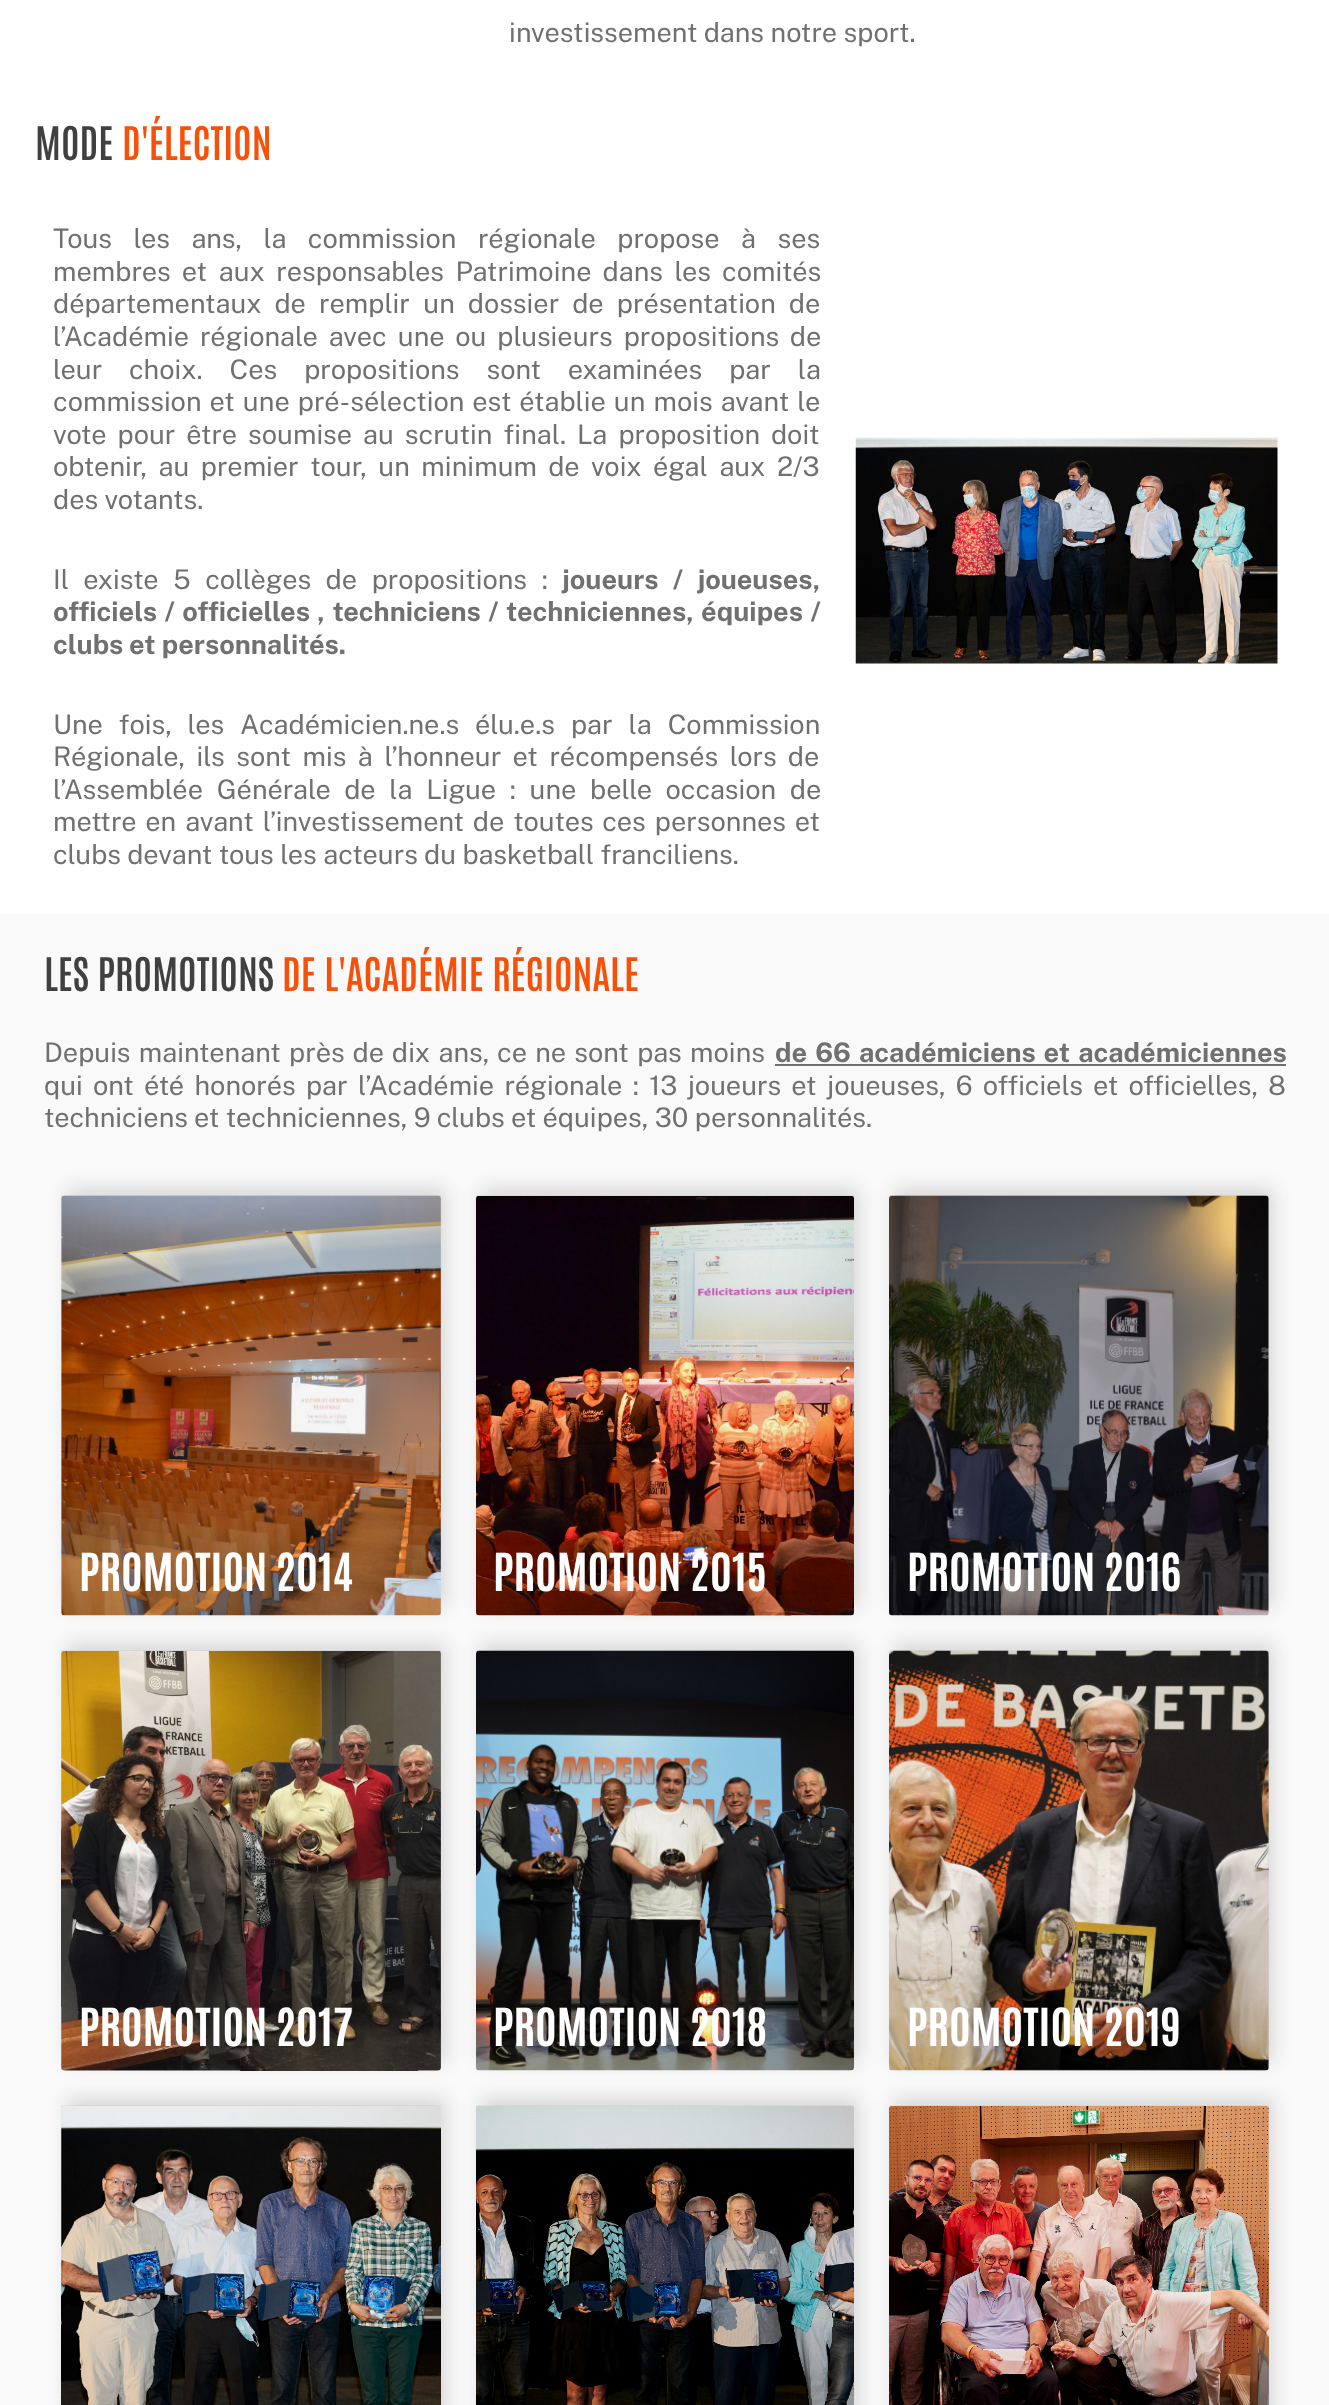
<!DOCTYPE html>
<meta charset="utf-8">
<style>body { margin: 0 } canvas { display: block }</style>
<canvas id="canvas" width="1329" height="2405"></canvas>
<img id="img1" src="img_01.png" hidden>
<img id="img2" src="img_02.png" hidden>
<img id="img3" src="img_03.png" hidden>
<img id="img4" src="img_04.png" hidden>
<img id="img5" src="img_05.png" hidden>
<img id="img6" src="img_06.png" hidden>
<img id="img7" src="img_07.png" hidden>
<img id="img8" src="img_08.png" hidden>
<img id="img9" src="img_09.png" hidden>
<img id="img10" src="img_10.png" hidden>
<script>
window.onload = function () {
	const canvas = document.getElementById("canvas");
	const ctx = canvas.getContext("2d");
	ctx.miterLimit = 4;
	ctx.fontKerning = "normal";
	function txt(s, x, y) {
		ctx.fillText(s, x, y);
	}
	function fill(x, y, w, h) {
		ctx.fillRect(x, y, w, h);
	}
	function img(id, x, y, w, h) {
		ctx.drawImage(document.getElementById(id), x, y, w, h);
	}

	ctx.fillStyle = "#FFFFFF";
	fill(0, 0, 1329, 2405);
	img("img1", 855, 437, 423, 227);
	ctx.fillStyle = "#F9F9F9";
	fill(0, 914, 1329, 1491);
	ctx.fillStyle = "#707070";
	fill(775, 1064, 511, 2);
	ctx.fillStyle = "rgba(0, 0, 0, 0.13)";
	ctx.filter = "blur(9px)";
	ctx.beginPath();
	ctx.roundRect(67, 1188, 379, 420, 4);
	ctx.fill();
	ctx.filter = "none";
	ctx.filter = "blur(9px)";
	ctx.beginPath();
	ctx.roundRect(67, 1643, 379, 420, 4);
	ctx.fill();
	ctx.filter = "none";
	img("img2", 61, 1195, 380, 421);
	ctx.fillStyle = "rgba(0, 0, 0, 0.04)";
	fill(61, 1195, 380, 420);
	ctx.fillStyle = "rgba(0, 0, 0, 0.13)";
	ctx.filter = "blur(9px)";
	ctx.beginPath();
	ctx.roundRect(481, 1188, 378, 420, 4);
	ctx.fill();
	ctx.filter = "none";
	ctx.filter = "blur(9px)";
	ctx.beginPath();
	ctx.roundRect(481, 1643, 378, 420, 4);
	ctx.fill();
	ctx.filter = "none";
	img("img3", 476, 1196, 378, 420);
	ctx.fillStyle = "rgba(0, 0, 0, 0.04)";
	fill(476, 1195, 378, 420);
	ctx.fillStyle = "rgba(0, 0, 0, 0.13)";
	ctx.filter = "blur(9px)";
	ctx.beginPath();
	ctx.roundRect(894, 1188, 380, 420, 4);
	ctx.fill();
	ctx.filter = "none";
	ctx.filter = "blur(9px)";
	ctx.beginPath();
	ctx.roundRect(894, 1643, 380, 420, 4);
	ctx.fill();
	ctx.filter = "none";
	img("img4", 889, 1195, 380, 421);
	ctx.fillStyle = "rgba(0, 0, 0, 0.04)";
	fill(889, 1195, 380, 420);
	ctx.fillStyle = "rgba(0, 0, 0, 0.13)";
	ctx.filter = "blur(9px)";
	ctx.beginPath();
	ctx.roundRect(67, 2098, 379, 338, 4);
	ctx.fill();
	ctx.filter = "none";
	img("img5", 61, 1651, 380, 420);
	ctx.fillStyle = "rgba(0, 0, 0, 0.04)";
	fill(61, 1650, 380, 420);
	ctx.fillStyle = "rgba(0, 0, 0, 0.13)";
	ctx.filter = "blur(9px)";
	ctx.beginPath();
	ctx.roundRect(481, 2098, 378, 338, 4);
	ctx.fill();
	ctx.filter = "none";
	img("img6", 476, 1650, 378, 421);
	ctx.fillStyle = "rgba(0, 0, 0, 0.04)";
	fill(476, 1650, 378, 420);
	ctx.fillStyle = "rgba(0, 0, 0, 0.13)";
	ctx.filter = "blur(9px)";
	ctx.beginPath();
	ctx.roundRect(894, 2098, 380, 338, 4);
	ctx.fill();
	ctx.filter = "none";
	img("img7", 889, 1650, 380, 421);
	ctx.fillStyle = "rgba(0, 0, 0, 0.04)";
	fill(889, 1650, 380, 420);
	img("img8", 61, 2106, 380, 299);
	fill(61, 2105, 380, 300);
	img("img9", 476, 2106, 378, 299);
	fill(476, 2105, 378, 300);
	img("img10", 889, 2106, 380, 299);
	fill(889, 2105, 380, 300);
	ctx.font = "27.1px Public Sans";
	ctx.fillStyle = "#707070";
	txt("investissement dans notre sport.", 509, 42);
	ctx.font = "600 39.4px Antonio";
	ctx.fillStyle = "#404040";
	txt("MODE", 35, 160);
	ctx.fillStyle = "#F75009";
	txt("D'ÉLECTION", 122, 160);
	ctx.wordSpacing = "15px";
	ctx.font = "27.1px Public Sans";
	ctx.fillStyle = "#707070";
	txt("Tous les ans, la commission régionale propose à ses", 53, 248);
	ctx.wordSpacing = "5px";
	txt("membres et aux responsables Patrimoine dans les comités", 53, 281);
	ctx.wordSpacing = "6.75px";
	txt("départementaux de remplir un dossier de présentation de", 53, 313);
	ctx.wordSpacing = "4.5px";
	txt("l’Académie régionale avec une ou plusieurs propositions de", 53, 346);
	ctx.wordSpacing = "20.5px";
	txt("leur choix. Ces propositions sont examinées par la", 53, 379);
	ctx.wordSpacing = "1.6px";
	txt("commission et une pré-sélection est établie un mois avant le", 53, 411);
	ctx.wordSpacing = "4.5px";
	txt("vote pour être soumise au scrutin final. La proposition doit", 53, 444);
	ctx.wordSpacing = "5px";
	txt("obtenir, au premier tour, un minimum de voix égal aux 2/3", 53, 476);
	ctx.wordSpacing = "0px";
	txt("des votants.", 53, 509);
	ctx.wordSpacing = "8.25px";
	txt("Il existe 5 collèges de propositions :", 53, 589);
	ctx.font = "bold 27.1px Public Sans";
	txt("joueurs / joueuses,", 562, 589);
	ctx.wordSpacing = "1.5px";
	txt("officiels / officielles , techniciens / techniciennes, équipes /", 53, 621);
	ctx.wordSpacing = "0px";
	txt("clubs et personnalités.", 53, 654);
	ctx.wordSpacing = "9.5px";
	ctx.font = "27.1px Public Sans";
	txt("Une fois, les Académicien.ne.s élu.e.s par la Commission", 53, 734);
	ctx.wordSpacing = "5px";
	txt("Régionale, ils sont mis à l’honneur et récompensés lors de", 53, 766);
	ctx.wordSpacing = "7.25px";
	txt("l’Assemblée Générale de la Ligue : une belle occasion de", 53, 799);
	ctx.wordSpacing = "2.5px";
	txt("mettre en avant l’investissement de toutes ces personnes et", 53, 831);
	ctx.wordSpacing = "0px";
	txt("clubs devant tous les acteurs du basketball franciliens.", 53, 864);
	ctx.font = "600 39.4px Antonio";
	ctx.fillStyle = "#404040";
	txt("LES PROMOTIONS", 44, 991);
	ctx.fillStyle = "#F75009";
	txt("DE L'ACADÉMIE RÉGIONALE", 282, 991);
	ctx.wordSpacing = "1.75px";
	ctx.font = "27.1px Public Sans";
	ctx.fillStyle = "#707070";
	txt("Depuis maintenant près de dix ans, ce ne sont pas moins", 44, 1062);
	ctx.wordSpacing = "2px";
	ctx.font = "bold 27.1px Public Sans";
	txt("de 66 académiciens et académiciennes", 775, 1062);
	ctx.wordSpacing = "3.9px";
	ctx.font = "27.1px Public Sans";
	txt("qui ont été honorés par l’Académie régionale : 13 joueurs et joueuses, 6 officiels et officielles, 8", 44, 1095);
	ctx.wordSpacing = "0px";
	txt("techniciens et techniciennes, 9 clubs et équipes, 30 personnalités.", 44, 1127);
	ctx.font = "bold 44.5px Antonio";
	ctx.fillStyle = "#FFFFFF";
	txt("PROMOTION 2014", 79, 1591);
	txt("PROMOTION 2015", 493, 1591);
	txt("PROMOTION 2016", 907, 1591);
	txt("PROMOTION 2017", 79, 2046);
	txt("PROMOTION 2018", 493, 2046);
	txt("PROMOTION 2019", 907, 2046);
};
</script>
